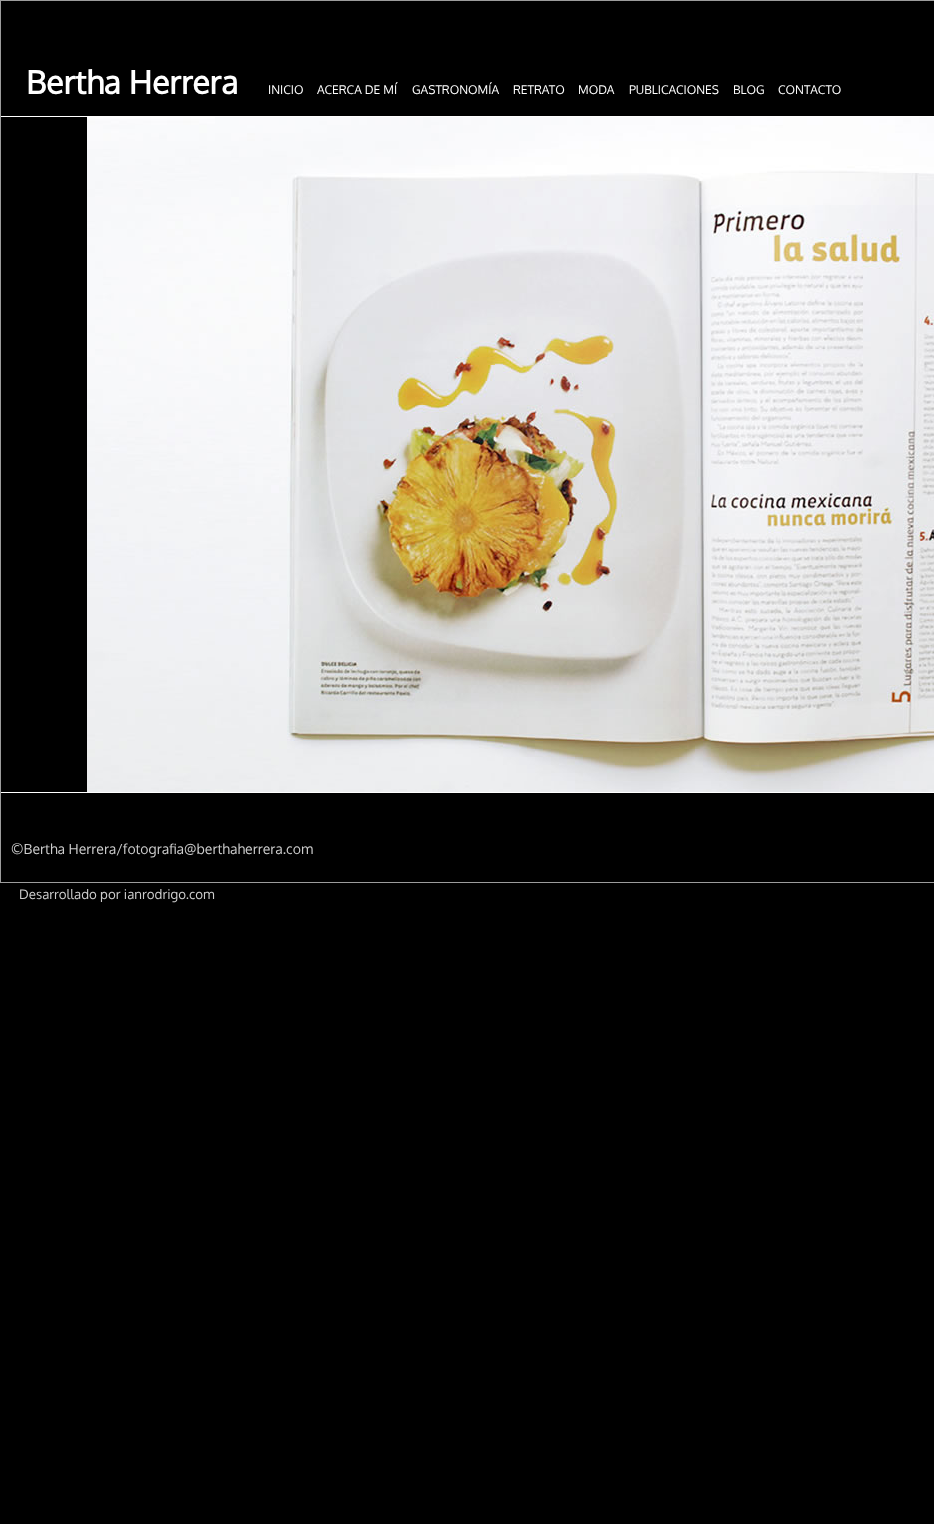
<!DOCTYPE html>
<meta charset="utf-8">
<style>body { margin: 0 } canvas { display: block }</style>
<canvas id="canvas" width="934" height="1524"></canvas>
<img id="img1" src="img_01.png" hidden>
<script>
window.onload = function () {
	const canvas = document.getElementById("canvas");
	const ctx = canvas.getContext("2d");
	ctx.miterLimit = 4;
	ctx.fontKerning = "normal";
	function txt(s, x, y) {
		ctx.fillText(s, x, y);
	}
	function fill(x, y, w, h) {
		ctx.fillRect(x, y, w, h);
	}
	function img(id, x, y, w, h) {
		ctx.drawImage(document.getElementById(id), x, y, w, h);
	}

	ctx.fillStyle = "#000000";
	fill(0, 0, 934, 1524);
	ctx.strokeStyle = "#9C9C9C";
	ctx.strokeRect(0.5, 0.5, 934, 882);
	ctx.fillStyle = "#FFFFFF";
	fill(1, 116, 933, 1);
	fill(1, 792, 933, 1);
	img("img1", 87, 117, 847, 675);
	ctx.font = "bold 32px Oxygen";
	txt("Bertha Herrera", 26, 94);
	ctx.font = "12px Oxygen";
	txt("INICIO", 268, 94);
	txt("ACERCA DE MÍ", 317, 94);
	txt("GASTRONOMÍA", 412, 94);
	txt("RETRATO", 513, 94);
	txt("MODA", 578, 94);
	txt("PUBLICACIONES", 629, 94);
	txt("BLOG", 733, 94);
	txt("CONTACTO", 778, 94);
	ctx.font = "14px Oxygen";
	ctx.fillStyle = "#CCCCCC";
	txt("©Bertha Herrera/fotografia@berthaherrera.com", 11, 854);
	ctx.font = "13.3px Oxygen";
	txt("Desarrollado por ianrodrigo.com", 19, 899);
};
</script>
